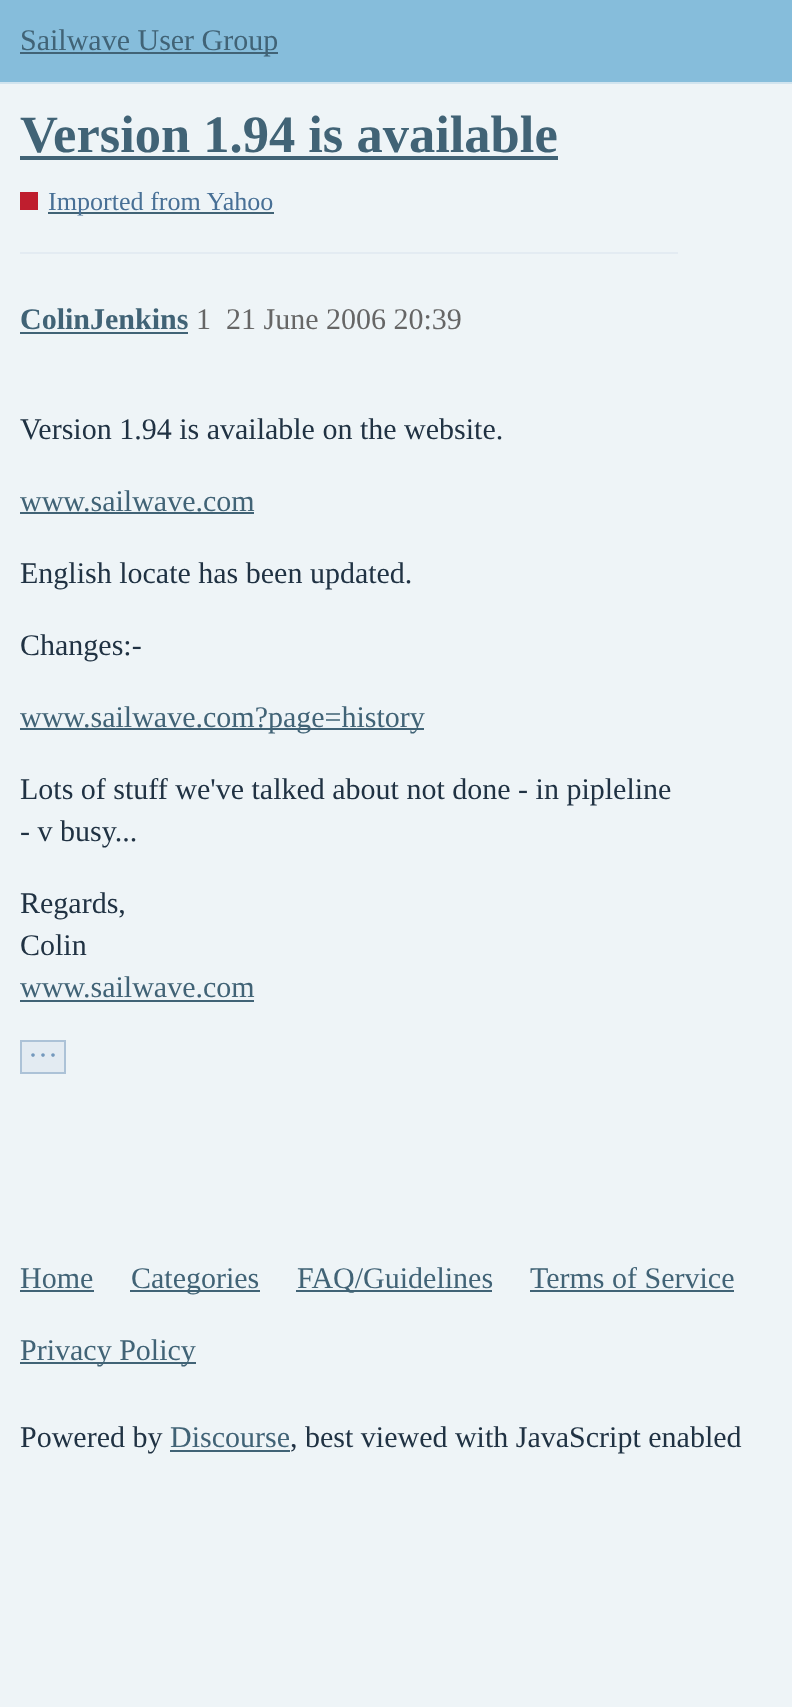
<!DOCTYPE html>
<meta charset="utf-8">
<style>body { margin: 0 } canvas { display: block }</style>
<canvas id="canvas" width="792" height="1707"></canvas>
<script>
window.onload = function () {
	const canvas = document.getElementById("canvas");
	const ctx = canvas.getContext("2d");
	ctx.miterLimit = 4;
	ctx.fontKerning = "normal";
	function txt(s, x, y) {
		ctx.fillText(s, x, y);
	}
	function fill(x, y, w, h) {
		ctx.fillRect(x, y, w, h);
	}

	ctx.fillStyle = "#EEF4F7";
	fill(0, 0, 792, 1707);
	ctx.fillStyle = "#86BDDB";
	fill(0, 0, 792, 82);
	ctx.fillStyle = "#D1E4EF";
	fill(0, 82, 792, 2);
	ctx.fillStyle = "#416376";
	fill(20, 52, 258, 2);
	fill(20, 156, 538, 4);
	ctx.fillStyle = "#BF1E2E";
	fill(20, 192, 18, 18);
	ctx.fillStyle = "#416376";
	fill(48, 212, 226, 2);
	ctx.fillStyle = "#E3EBF2";
	fill(20, 252, 658, 2);
	ctx.fillStyle = "#416376";
	fill(20, 332, 168, 2);
	fill(20, 512, 234, 2);
	fill(20, 728, 404, 2);
	fill(20, 1000, 234, 2);
	ctx.fillStyle = "#E3EBF2";
	ctx.beginPath();
	ctx.rect(21, 1041, 44, 32);
	ctx.fill();
	ctx.strokeStyle = "#ACC2D7";
	ctx.lineWidth = 2;
	ctx.stroke();
	ctx.fillStyle = "#416376";
	fill(20, 1290, 74, 2);
	fill(130, 1290, 130, 2);
	fill(296, 1290, 196, 2);
	fill(530, 1290, 204, 2);
	fill(20, 1362, 176, 2);
	fill(170, 1450, 120, 2);
	ctx.font = "30px Liberation Serif";
	txt("Sailwave User Group", 20, 50);
	ctx.font = "bold 52.5px Liberation Serif";
	txt("Version 1.94 is available", 20, 152);
	ctx.font = "26.1px Liberation Serif";
	ctx.fillStyle = "#487096";
	txt("Imported from Yahoo", 48, 210);
	ctx.font = "bold 30px Liberation Serif";
	ctx.fillStyle = "#416376";
	txt("ColinJenkins", 20, 329);
	ctx.font = "30px Liberation Serif";
	ctx.fillStyle = "#666666";
	txt("1", 196, 329);
	txt("21 June 2006 20:39", 226, 329);
	ctx.fillStyle = "#203243";
	txt("Version 1.94 is available on the website.", 20, 439);
	ctx.fillStyle = "#416376";
	txt("www.sailwave.com", 20, 511);
	ctx.fillStyle = "#203243";
	txt("English locate has been updated.", 20, 583);
	txt("Changes:-", 20, 655);
	ctx.fillStyle = "#416376";
	txt("www.sailwave.com?page=history", 20, 727);
	ctx.fillStyle = "#203243";
	txt("Lots of stuff we've talked about not done - in pipleline", 20, 799);
	txt("- v busy...", 20, 841);
	txt("Regards,", 20, 913);
	txt("Colin", 20, 955);
	ctx.fillStyle = "#416376";
	txt("www.sailwave.com", 20, 997);
	ctx.fillStyle = "#7499BD";
	txt("···", 28, 1065);
	ctx.fillStyle = "#416376";
	txt("Home", 20, 1288);
	txt("Categories", 131, 1288);
	txt("FAQ/Guidelines", 297, 1288);
	txt("Terms of Service", 530, 1288);
	txt("Privacy Policy", 20, 1360);
	ctx.fillStyle = "#203243";
	txt("Powered by", 20, 1447);
	ctx.fillStyle = "#416376";
	txt("Discourse", 170, 1447);
	ctx.fillStyle = "#203243";
	txt(", best viewed with JavaScript enabled", 290, 1447);
};
</script>
